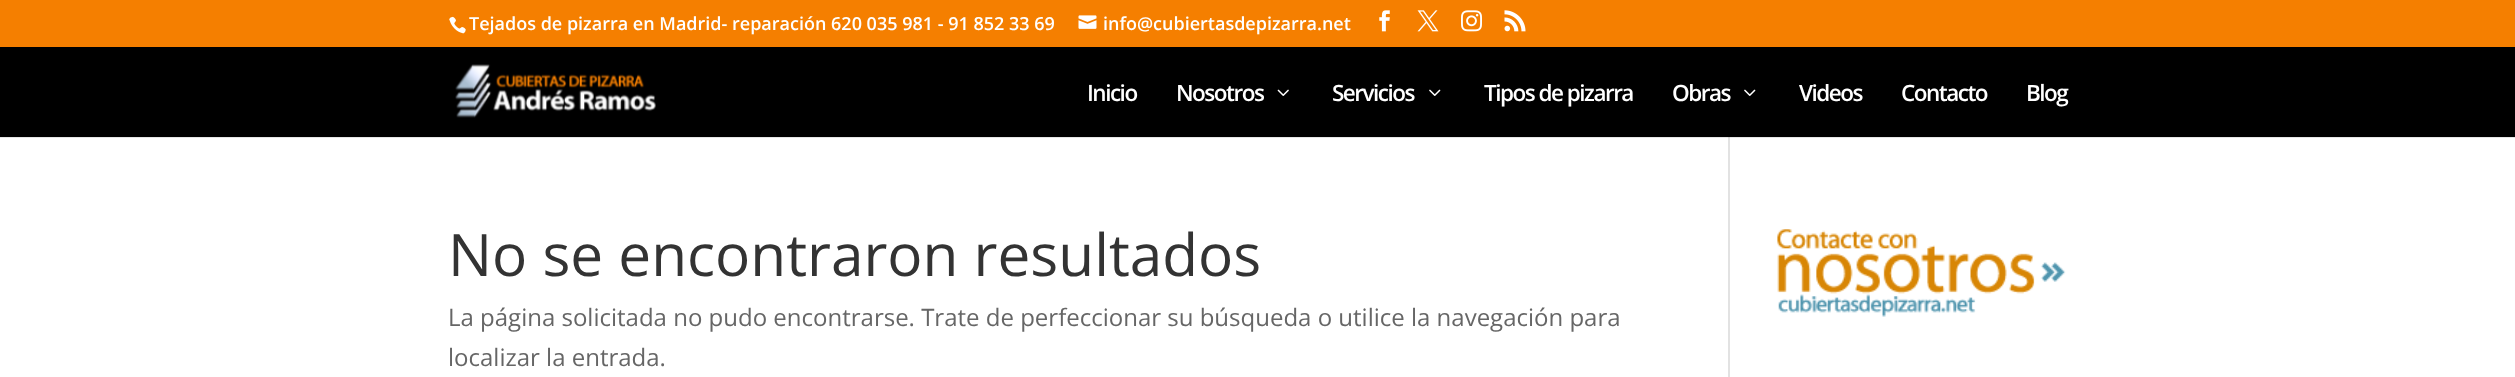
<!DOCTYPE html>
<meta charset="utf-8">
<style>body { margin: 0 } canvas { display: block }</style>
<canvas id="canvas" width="2515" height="377"></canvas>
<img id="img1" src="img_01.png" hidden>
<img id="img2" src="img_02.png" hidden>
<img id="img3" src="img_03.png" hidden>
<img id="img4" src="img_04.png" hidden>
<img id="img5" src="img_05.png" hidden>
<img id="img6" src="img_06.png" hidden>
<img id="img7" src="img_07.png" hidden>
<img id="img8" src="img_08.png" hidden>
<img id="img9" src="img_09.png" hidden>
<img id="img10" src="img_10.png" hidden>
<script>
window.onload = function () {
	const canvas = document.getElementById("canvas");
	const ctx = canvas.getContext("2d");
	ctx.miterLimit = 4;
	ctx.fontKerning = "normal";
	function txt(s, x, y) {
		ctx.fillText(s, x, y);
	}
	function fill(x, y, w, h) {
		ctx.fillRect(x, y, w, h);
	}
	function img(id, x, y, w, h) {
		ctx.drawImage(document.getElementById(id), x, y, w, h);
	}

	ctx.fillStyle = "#FFFFFF";
	fill(0, 0, 2515, 377);
	ctx.fillStyle = "#F57F00";
	fill(0, 0, 2515, 47);
	img("img1", 449, 16, 17, 18);
	img("img2", 1078, 15, 19, 14);
	img("img3", 1379, 10, 11, 22);
	img("img4", 1417, 10, 22, 22);
	img("img5", 1461, 10, 21, 22);
	img("img6", 1504, 10, 22, 22);
	ctx.fillStyle = "#E2E2E2";
	fill(1728, 137, 2, 240);
	ctx.fillStyle = "rgba(0, 0, 0, 0.1)";
	ctx.beginPath();
	ctx.moveTo(0, 136);
	ctx.lineTo(0, 138);
	ctx.lineTo(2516, 138);
	ctx.lineTo(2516, 48);
	ctx.lineTo(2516, 136);
	ctx.closePath();
	ctx.fill();
	ctx.fillStyle = "#000000";
	fill(0, 47, 2515, 90);
	img("img7", 455, 64, 201, 54);
	img("img8", 1277, 89, 12, 7);
	img("img9", 1429, 89, 12, 7);
	img("img9", 1744, 89, 12, 7);
	img("img10", 1777, 229, 289, 88);
	ctx.font = "600 18px Open Sans";
	ctx.fillStyle = "#FFFFFF";
	txt("Tejados de pizarra en Madrid- reparación 620 035 981 - 91 852 33 69", 469, 30);
	txt("info@cubiertasdepizarra.net", 1103, 30);
	ctx.letterSpacing = "-1.5px";
	ctx.font = "600 22.5px Open Sans";
	txt("Inicio", 1087, 101);
	txt("Nosotros", 1176, 101);
	txt("Servicios", 1332, 101);
	txt("Tipos de pizarra", 1484, 101);
	txt("Obras", 1672, 101);
	txt("Videos", 1799, 101);
	txt("Contacto", 1901, 101);
	txt("Blog", 2026, 101);
	ctx.letterSpacing = "0px";
	ctx.font = "58.5px Open Sans";
	ctx.fillStyle = "#333333";
	txt("No se encontraron resultados", 448, 276);
	ctx.font = "24px Open Sans";
	ctx.fillStyle = "#666666";
	txt("La página solicitada no pudo encontrarse. Trate de perfeccionar su búsqueda o utilice la navegación para", 448, 326);
	txt("localizar la entrada.", 448, 366);
};
</script>
